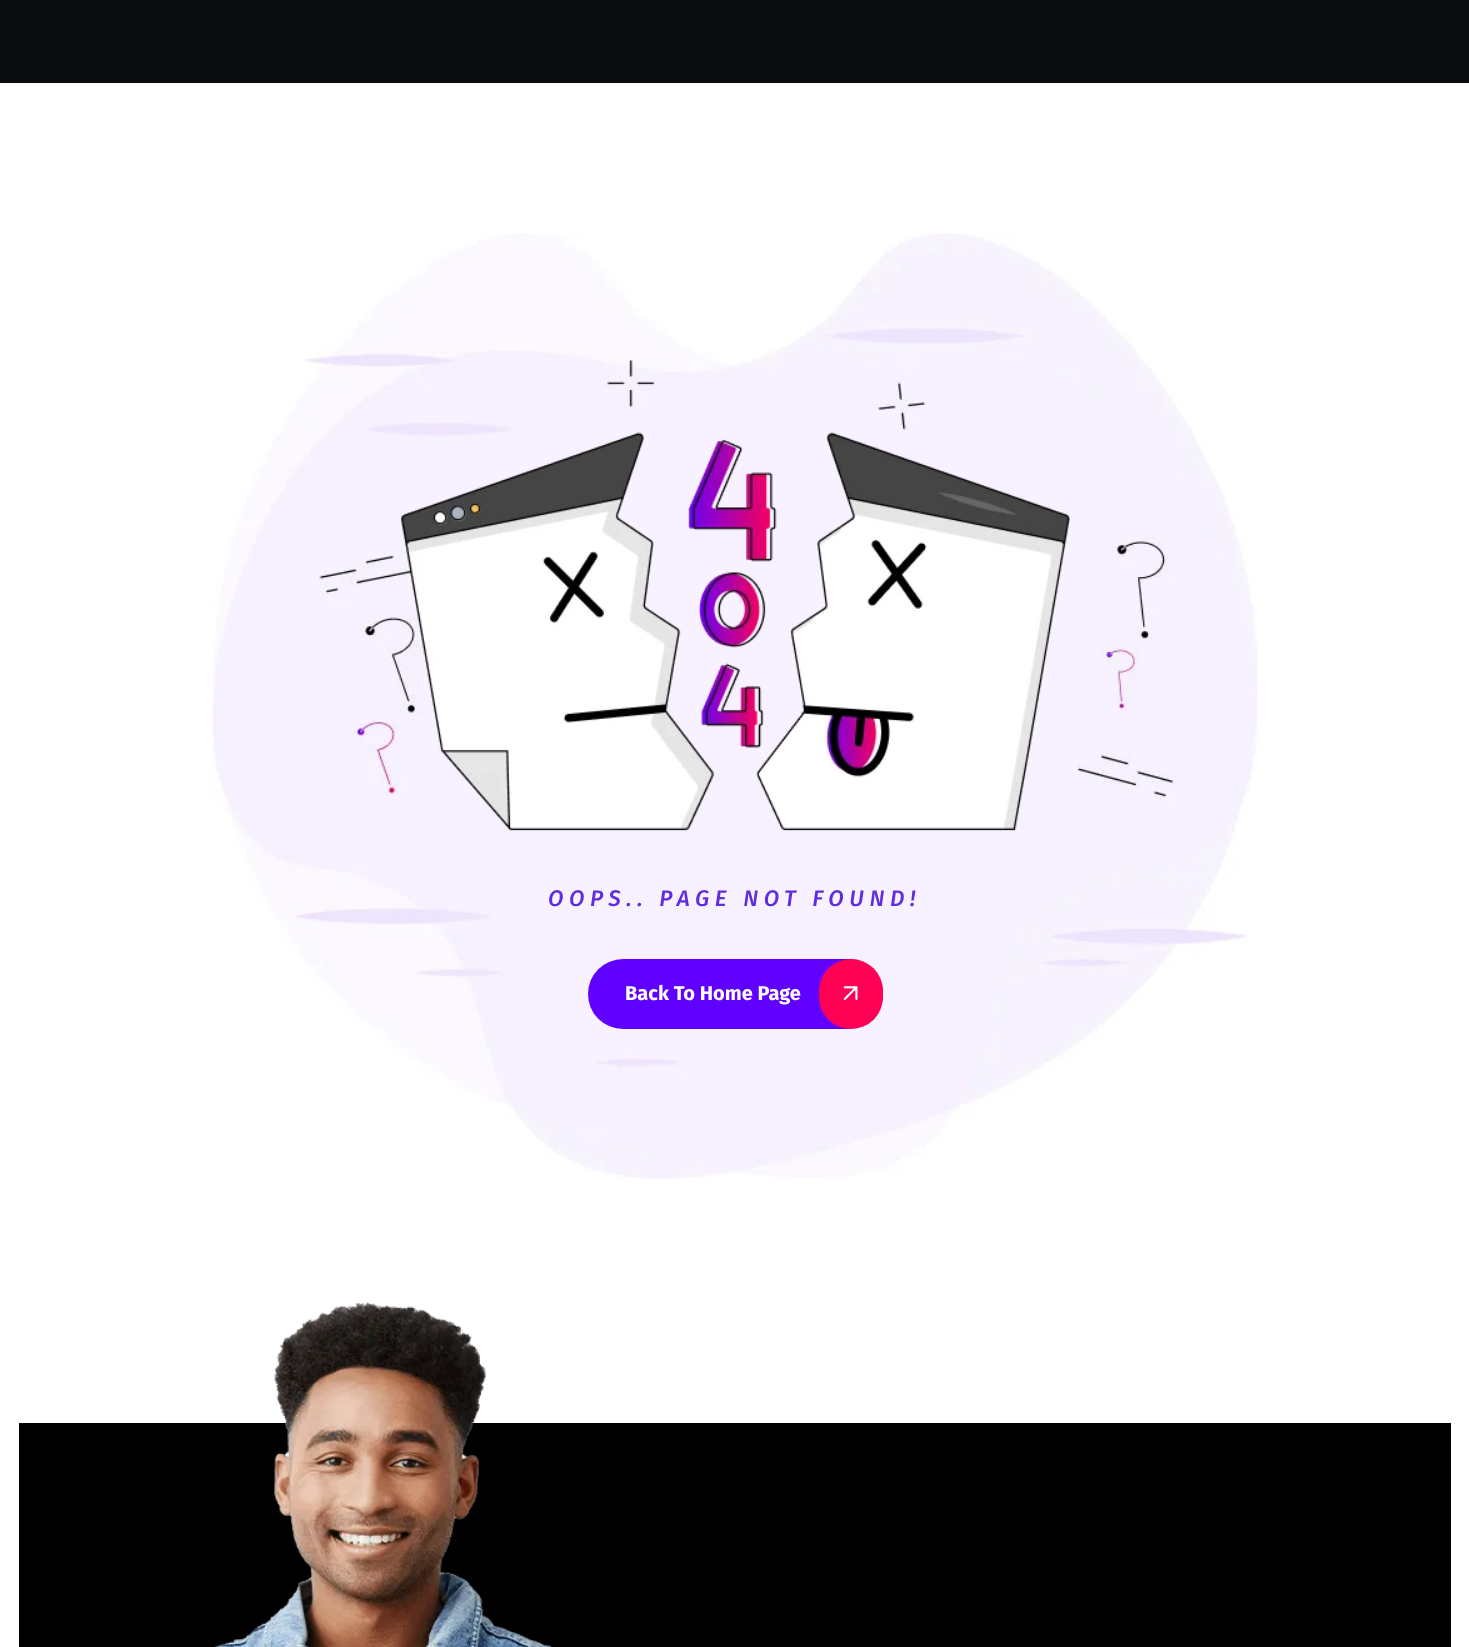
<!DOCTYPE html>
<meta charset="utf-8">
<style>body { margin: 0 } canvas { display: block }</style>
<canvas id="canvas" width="1469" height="1647"></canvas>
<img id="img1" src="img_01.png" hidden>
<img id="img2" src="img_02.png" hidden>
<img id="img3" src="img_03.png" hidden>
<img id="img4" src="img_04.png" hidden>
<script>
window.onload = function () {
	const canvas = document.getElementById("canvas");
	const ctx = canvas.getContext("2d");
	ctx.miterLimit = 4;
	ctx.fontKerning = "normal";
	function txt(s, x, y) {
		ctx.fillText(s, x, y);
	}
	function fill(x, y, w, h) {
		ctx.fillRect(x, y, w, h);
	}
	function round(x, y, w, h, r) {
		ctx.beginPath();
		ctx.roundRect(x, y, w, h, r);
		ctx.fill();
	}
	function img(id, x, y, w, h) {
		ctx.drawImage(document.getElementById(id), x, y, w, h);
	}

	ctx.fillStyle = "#FFFFFF";
	fill(0, 0, 1469, 1647);
	ctx.fillStyle = "#0B0C10";
	fill(0, 0, 1469, 83);
	img("img1", 212, 233, 1046, 946);
	img("img2", 401, 432, 669, 399);
	ctx.fillStyle = "#6000FF";
	round(588, 959, 295, 70, 35);
	ctx.fillStyle = "#FE0054";
	round(819, 959, 64, 70, 32);
	img("img3", 843, 986, 15, 14);
	ctx.fillStyle = "#000000";
	fill(19, 1423, 1432, 224);
	img("img4", 214, 1302, 338, 345);
	ctx.letterSpacing = "5.6px";
	ctx.font = "italic 500 22.5px Fira Sans";
	ctx.fillStyle = "#5F2DDE";
	txt("OOPS.. PAGE NOT FOUND!", 548, 906);
	ctx.letterSpacing = "0px";
	ctx.font = "bold 20px Fira Sans";
	ctx.fillStyle = "#FFFFFF";
	txt("Back To Home Page", 625, 1000);
};
</script>
